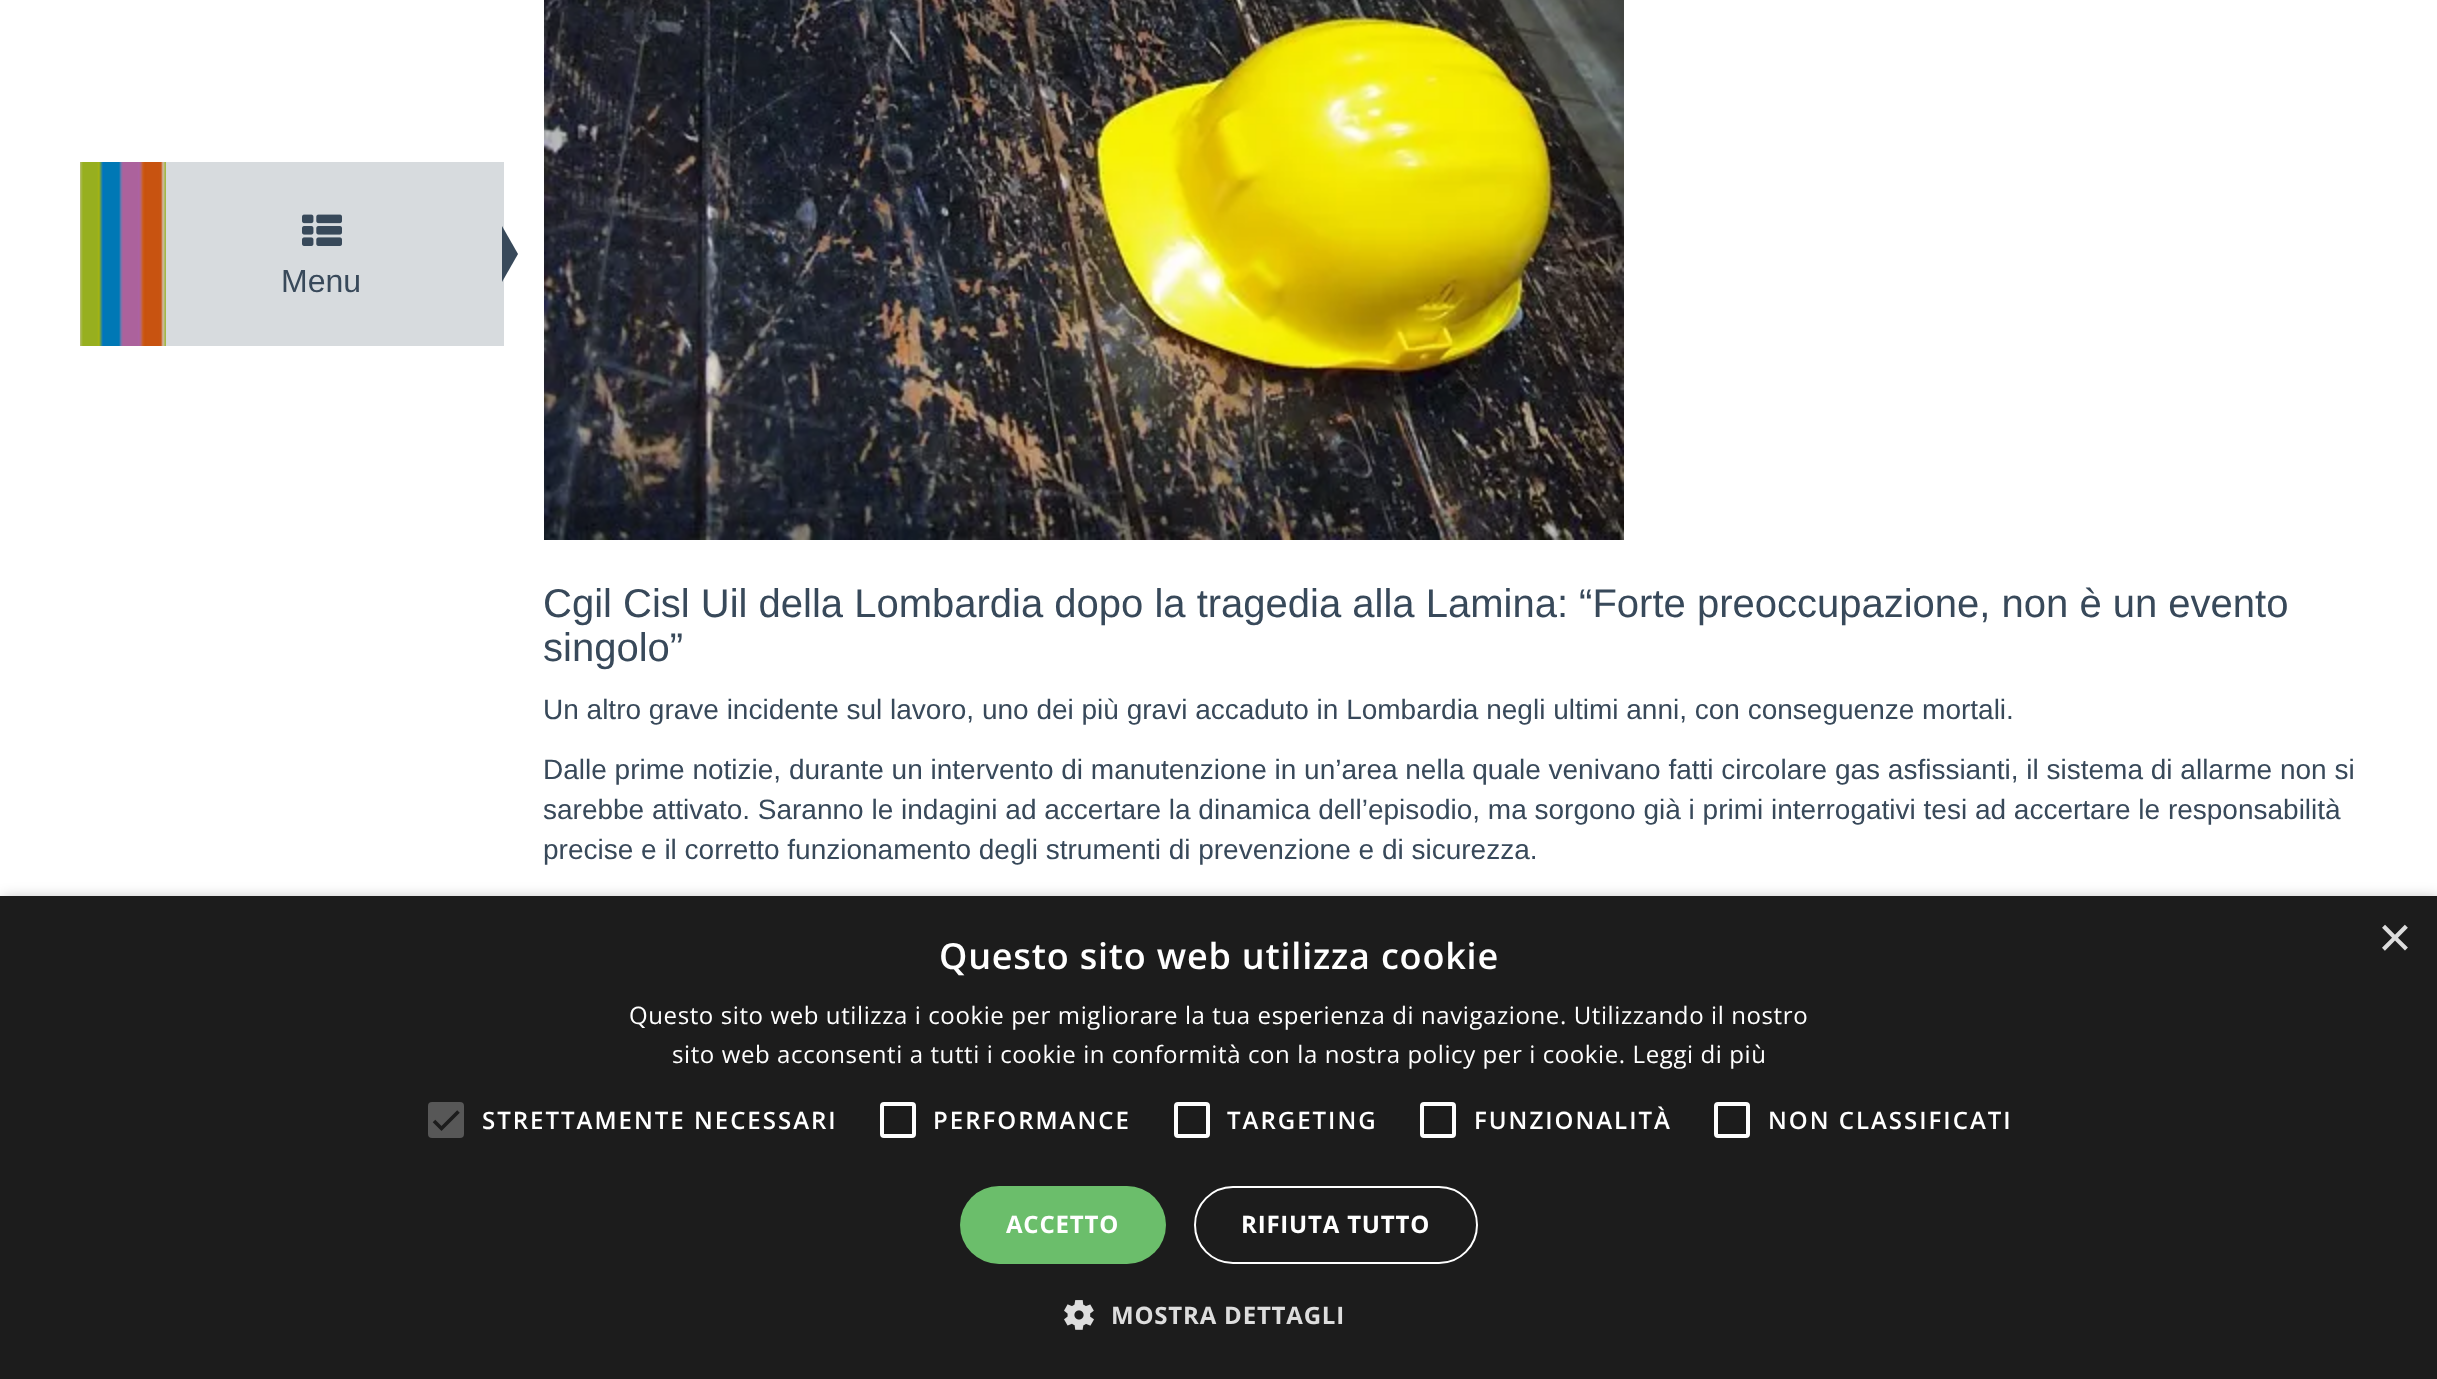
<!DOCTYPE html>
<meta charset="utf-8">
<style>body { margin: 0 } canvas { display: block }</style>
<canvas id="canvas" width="2437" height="1379"></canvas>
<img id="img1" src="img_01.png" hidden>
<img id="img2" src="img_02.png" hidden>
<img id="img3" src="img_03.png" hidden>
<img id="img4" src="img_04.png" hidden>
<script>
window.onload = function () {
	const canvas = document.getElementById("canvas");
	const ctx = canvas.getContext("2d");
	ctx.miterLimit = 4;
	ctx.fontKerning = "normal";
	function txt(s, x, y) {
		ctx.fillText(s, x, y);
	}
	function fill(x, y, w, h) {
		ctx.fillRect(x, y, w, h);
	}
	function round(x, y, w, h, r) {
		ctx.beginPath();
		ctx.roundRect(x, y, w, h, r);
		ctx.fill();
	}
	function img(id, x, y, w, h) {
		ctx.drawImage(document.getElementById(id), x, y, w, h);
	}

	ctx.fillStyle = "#FFFFFF";
	fill(0, 0, 2437, 1379);
	ctx.fillStyle = "#D7DBDE";
	fill(166, 162, 338, 184);
	img("img1", 80, 162, 86, 184);
	img("img2", 302, 214, 40, 32);
	ctx.fillStyle = "#38495A";
	ctx.beginPath();
	ctx.moveTo(502, 282);
	ctx.lineTo(502, 226);
	ctx.lineTo(518, 254);
	ctx.closePath();
	ctx.fill();
	img("img3", 544, 0, 1080, 540);
	ctx.fillStyle = "rgba(0, 0, 0, 0.35)";
	ctx.filter = "blur(8px)";
	ctx.beginPath();
	ctx.rect(2, 900, 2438, 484);
	ctx.fill();
	ctx.filter = "none";
	ctx.fillStyle = "#1C1C1C";
	fill(0, 896, 2437, 483);
	ctx.fillStyle = "#575757";
	round(428, 1102, 36, 36, 4);
	ctx.beginPath();
	ctx.moveTo(434, 1121);
	ctx.lineTo(441.5, 1128.5);
	ctx.lineTo(458.5, 1111.5);
	ctx.strokeStyle = "#1C1C1C";
	ctx.lineWidth = 3.6;
	ctx.stroke();
	ctx.beginPath();
	ctx.roundRect(882, 1104, 32, 32, 2);
	ctx.strokeStyle = "#FFFFFF";
	ctx.lineWidth = 4;
	ctx.stroke();
	ctx.beginPath();
	ctx.roundRect(1176, 1104, 32, 32, 2);
	ctx.stroke();
	ctx.beginPath();
	ctx.roundRect(1422, 1104, 32, 32, 2);
	ctx.stroke();
	ctx.beginPath();
	ctx.roundRect(1716, 1104, 32, 32, 2);
	ctx.stroke();
	ctx.fillStyle = "#6BBE6B";
	round(960, 1186, 206, 78, 39);
	ctx.beginPath();
	ctx.roundRect(1195, 1187, 282, 76, 38);
	ctx.lineWidth = 2;
	ctx.stroke();
	img("img4", 1064, 1300, 30, 30);
	ctx.font = "32px Liberation Sans";
	ctx.fillStyle = "#38495A";
	txt("Menu", 281, 292);
	ctx.font = "40px Liberation Sans";
	txt("Cgil Cisl Uil della Lombardia dopo la tragedia alla Lamina: “Forte preoccupazione, non è un evento", 543, 617);
	txt("singolo”", 543, 661);
	ctx.font = "28px Liberation Sans";
	txt("Un altro grave incidente sul lavoro, uno dei più gravi accaduto in Lombardia negli ultimi anni, con conseguenze mortali.", 543, 719);
	txt("Dalle prime notizie, durante un intervento di manutenzione in un’area nella quale venivano fatti circolare gas asfissianti, il sistema di allarme non si", 543, 779);
	txt("sarebbe attivato. Saranno le indagini ad accertare la dinamica dell’episodio, ma sorgono già i primi interrogativi tesi ad accertare le responsabilità", 543, 819);
	txt("precise e il corretto funzionamento degli strumenti di prevenzione e di sicurezza.", 543, 859);
	ctx.font = "58px Liberation Sans";
	ctx.fillStyle = "#DDDDDD";
	txt("×", 2378, 957);
	ctx.letterSpacing = "0.8px";
	ctx.font = "600 36px Open Sans";
	ctx.fillStyle = "#FFFFFF";
	txt("Questo sito web utilizza cookie", 939, 969);
	ctx.letterSpacing = "0.6px";
	ctx.font = "24px Open Sans";
	txt("Questo sito web utilizza i cookie per migliorare la tua esperienza di navigazione. Utilizzando il nostro", 629, 1024);
	txt("sito web acconsenti a tutti i cookie in conformità con la nostra policy per i cookie. Leggi di più", 672, 1063);
	ctx.letterSpacing = "2px";
	ctx.font = "600 24px Open Sans";
	txt("STRETTAMENTE NECESSARI", 482, 1129);
	txt("PERFORMANCE", 933, 1129);
	txt("TARGETING", 1227, 1129);
	txt("FUNZIONALITÀ", 1474, 1129);
	txt("NON CLASSIFICATI", 1768, 1129);
	ctx.letterSpacing = "0.8px";
	ctx.font = "bold 24px Open Sans";
	txt("ACCETTO", 1006, 1233);
	txt("RIFIUTA TUTTO", 1241, 1233);
	ctx.fillStyle = "#DDDDDD";
	txt("MOSTRA DETTAGLI", 1111, 1324);
};
</script>
